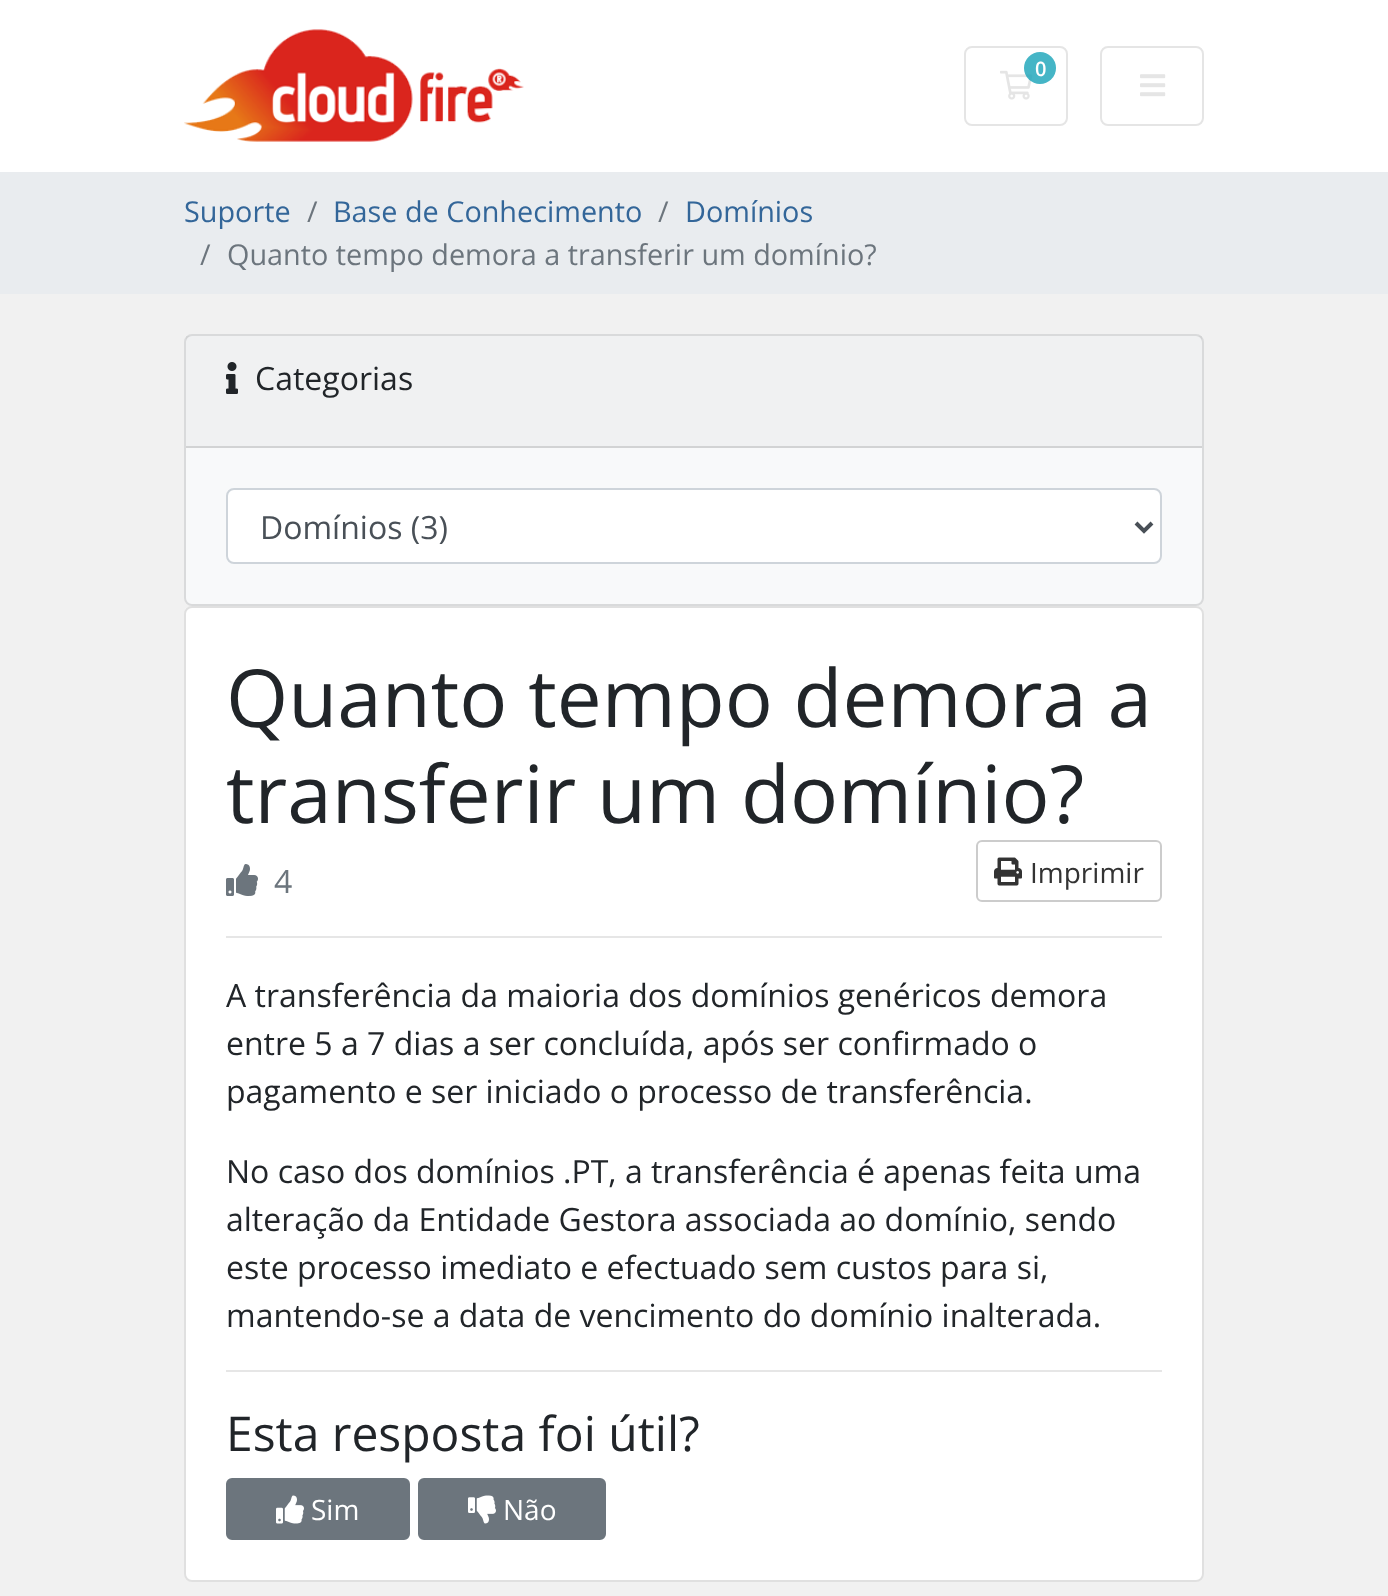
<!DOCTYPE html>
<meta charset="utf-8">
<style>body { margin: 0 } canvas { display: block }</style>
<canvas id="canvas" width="1388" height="1596"></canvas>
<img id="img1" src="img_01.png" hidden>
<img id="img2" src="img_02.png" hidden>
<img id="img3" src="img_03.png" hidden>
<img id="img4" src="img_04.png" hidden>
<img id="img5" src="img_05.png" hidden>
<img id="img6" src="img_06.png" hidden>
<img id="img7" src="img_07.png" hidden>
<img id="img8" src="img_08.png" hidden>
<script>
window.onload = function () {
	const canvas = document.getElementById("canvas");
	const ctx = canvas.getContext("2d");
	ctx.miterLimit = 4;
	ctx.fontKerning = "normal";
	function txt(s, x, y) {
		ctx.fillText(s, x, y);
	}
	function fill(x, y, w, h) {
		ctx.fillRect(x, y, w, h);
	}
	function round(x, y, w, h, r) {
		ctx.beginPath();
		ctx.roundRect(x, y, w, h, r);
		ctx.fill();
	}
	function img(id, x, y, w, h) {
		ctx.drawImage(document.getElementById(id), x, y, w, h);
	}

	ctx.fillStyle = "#F1F1F1";
	fill(0, 0, 1388, 1596);
	ctx.fillStyle = "#FFFFFF";
	fill(0, 0, 1388, 172);
	img("img1", 184, 29, 340, 113);
	ctx.beginPath();
	ctx.roundRect(965, 47, 102, 78, 7);
	ctx.strokeStyle = "#E5E5E5";
	ctx.lineWidth = 2;
	ctx.stroke();
	img("img2", 1000, 70, 33, 30);
	ctx.fillStyle = "rgba(23, 162, 184, 0.8)";
	ctx.beginPath();
	ctx.arc(1040, 68, 16, 0, Math.PI * 2);
	ctx.fill();
	ctx.beginPath();
	ctx.roundRect(1101, 47, 102, 78, 7);
	ctx.stroke();
	img("img3", 1140, 74, 26, 23);
	ctx.fillStyle = "#E9ECEF";
	fill(0, 172, 1388, 122);
	ctx.fillStyle = "#F8F9FA";
	round(184, 334, 1020, 272, 8);
	ctx.beginPath();
	ctx.roundRect(185, 335, 1018, 270, 7);
	ctx.strokeStyle = "rgba(0, 0, 0, 0.12)";
	ctx.stroke();
	ctx.fillStyle = "rgba(0, 0, 0, 0.03)";
	fill(186, 336, 1016, 110);
	ctx.fillStyle = "#D2D3D4";
	fill(186, 446, 1016, 2);
	img("img4", 226, 362, 12, 32);
	ctx.fillStyle = "#FFFFFF";
	ctx.beginPath();
	ctx.roundRect(227, 489, 934, 74, 7);
	ctx.fill();
	ctx.strokeStyle = "#CED4DA";
	ctx.stroke();
	ctx.beginPath();
	ctx.moveTo(1136, 523);
	ctx.lineTo(1144, 531);
	ctx.lineTo(1152, 523);
	ctx.strokeStyle = "#495057";
	ctx.lineWidth = 4;
	ctx.stroke();
	round(184, 606, 1020, 976, 8);
	ctx.beginPath();
	ctx.roundRect(185, 607, 1018, 974, 7);
	ctx.strokeStyle = "rgba(0, 0, 0, 0.12)";
	ctx.lineWidth = 2;
	ctx.stroke();
	ctx.beginPath();
	ctx.roundRect(977, 841, 184, 60, 5);
	ctx.strokeStyle = "#CCCCCC";
	ctx.stroke();
	img("img5", 994, 857, 28, 29);
	img("img6", 226, 864, 32, 32);
	ctx.fillStyle = "#E6E6E6";
	fill(226, 936, 936, 2);
	fill(226, 1370, 936, 2);
	ctx.fillStyle = "#6C757D";
	ctx.beginPath();
	ctx.roundRect(227, 1479, 182, 60, 5);
	ctx.fill();
	ctx.strokeStyle = "#6C757D";
	ctx.stroke();
	img("img7", 276, 1495, 28, 29);
	ctx.beginPath();
	ctx.roundRect(419, 1479, 186, 60, 5);
	ctx.fill();
	ctx.stroke();
	img("img8", 468, 1495, 28, 29);
	ctx.font = "600 20px Open Sans";
	ctx.fillStyle = "#FFFFFF";
	txt("0", 1035, 76);
	ctx.font = "28.8px Open Sans";
	ctx.fillStyle = "#336699";
	txt("Suporte", 184, 222);
	ctx.fillStyle = "#6C757D";
	txt("/", 307, 222);
	ctx.fillStyle = "#336699";
	txt("Base de Conhecimento", 333, 222);
	ctx.fillStyle = "#6C757D";
	txt("/", 658, 222);
	ctx.fillStyle = "#336699";
	txt("Domínios", 685, 222);
	ctx.fillStyle = "#6C757D";
	txt("/", 200, 265);
	txt("Quanto tempo demora a transferir um domínio?", 227, 265);
	ctx.font = "32px Open Sans";
	ctx.fillStyle = "#212529";
	txt("Categorias", 255, 390);
	ctx.fillStyle = "#495057";
	txt("Domínios (3)", 260, 539);
	ctx.font = "80px Open Sans";
	ctx.fillStyle = "#212529";
	txt("Quanto tempo demora a", 226, 727);
	txt("transferir um domínio?", 226, 823);
	ctx.font = "28px Open Sans";
	ctx.fillStyle = "#333333";
	txt("Imprimir", 1030, 883);
	ctx.font = "32px Open Sans";
	ctx.fillStyle = "#6C757D";
	txt("4", 274, 893);
	ctx.fillStyle = "#212529";
	txt("A transferência da maioria dos domínios genéricos demora", 226, 1007);
	txt("entre 5 a 7 dias a ser concluída, após ser confirmado o", 226, 1055);
	txt("pagamento e ser iniciado o processo de transferência.", 226, 1103);
	txt("No caso dos domínios .PT, a transferência é apenas feita uma", 226, 1183);
	txt("alteração da Entidade Gestora associada ao domínio, sendo", 226, 1231);
	txt("este processo imediato e efectuado sem custos para si,", 226, 1279);
	txt("mantendo-se a data de vencimento do domínio inalterada.", 226, 1327);
	ctx.font = "48px Open Sans";
	txt("Esta resposta foi útil?", 226, 1451);
	ctx.font = "28px Open Sans";
	ctx.fillStyle = "#FFFFFF";
	txt("Sim", 311, 1520);
	txt("Não", 503, 1520);
};
</script>
